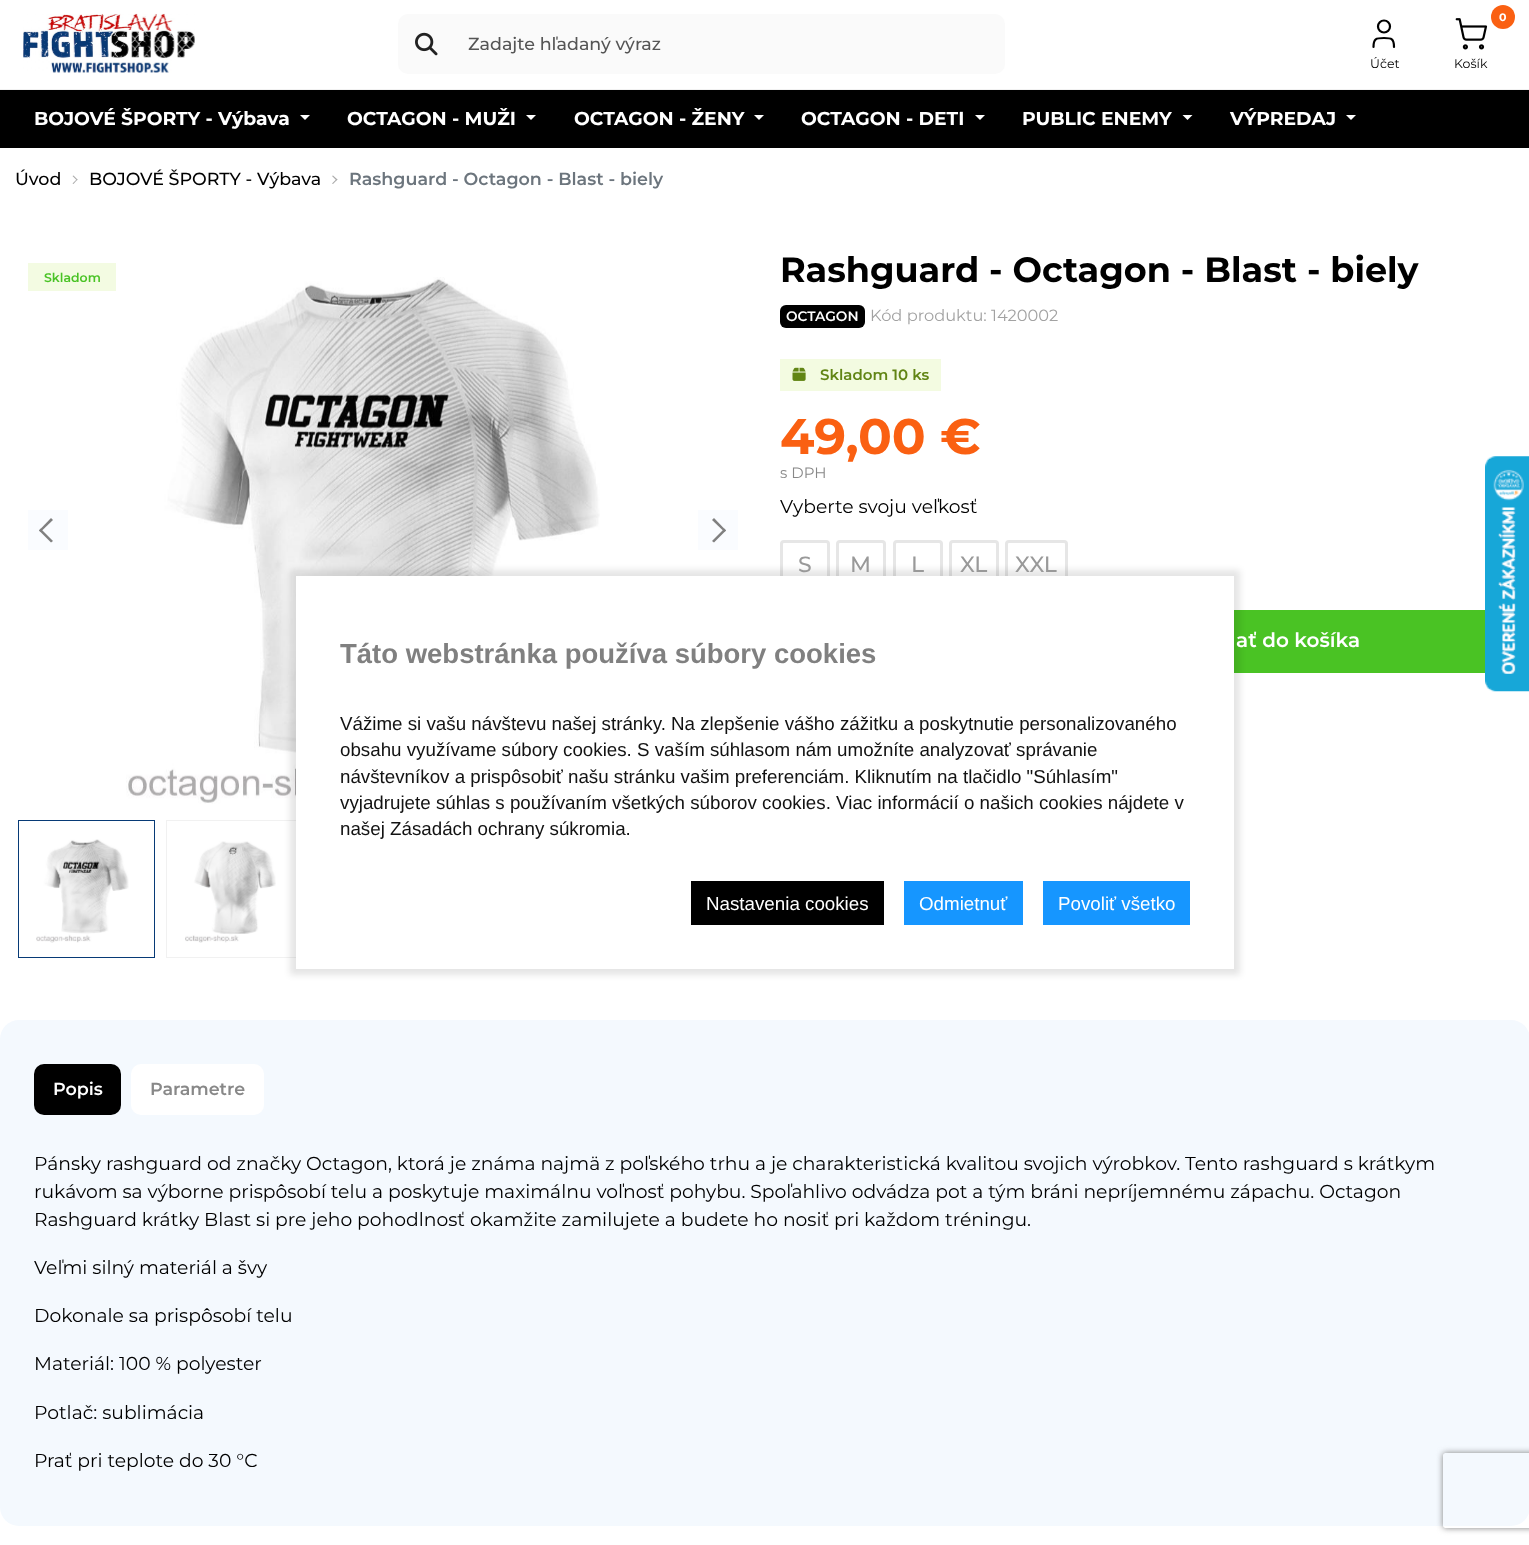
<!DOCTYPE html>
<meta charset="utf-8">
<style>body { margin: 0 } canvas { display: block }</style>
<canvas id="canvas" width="1529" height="1545"></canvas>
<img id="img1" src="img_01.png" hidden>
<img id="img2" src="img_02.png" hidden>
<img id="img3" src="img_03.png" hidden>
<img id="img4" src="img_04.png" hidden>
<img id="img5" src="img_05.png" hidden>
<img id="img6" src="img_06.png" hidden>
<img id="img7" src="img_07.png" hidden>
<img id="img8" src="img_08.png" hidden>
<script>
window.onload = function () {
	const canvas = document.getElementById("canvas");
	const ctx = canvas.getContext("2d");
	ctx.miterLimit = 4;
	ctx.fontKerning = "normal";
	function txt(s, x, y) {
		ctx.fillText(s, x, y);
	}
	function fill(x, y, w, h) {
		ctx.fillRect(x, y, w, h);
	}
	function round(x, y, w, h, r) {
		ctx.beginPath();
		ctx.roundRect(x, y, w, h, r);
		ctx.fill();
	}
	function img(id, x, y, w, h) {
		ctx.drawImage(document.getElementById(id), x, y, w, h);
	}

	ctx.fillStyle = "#FFFFFF";
	fill(0, 0, 1529, 1545);
	ctx.fillStyle = "#F1F1F1";
	fill(0, 89, 1529, 1);
	img("img1", 23, 13, 172, 60);
	ctx.fillStyle = "#FAFAFA";
	ctx.beginPath();
	ctx.roundRect(398, 14, 56, 60, [10, 0, 0, 10]);
	ctx.fill();
	img("img2", 415, 32, 23, 24);
	ctx.beginPath();
	ctx.roundRect(453, 14, 552, 60, [0, 10, 10, 0]);
	ctx.fill();
	ctx.beginPath();
	ctx.arc(1384, 26.5, 6, 0, Math.PI * 2);
	ctx.strokeStyle = "#000000";
	ctx.lineWidth = 2.2;
	ctx.stroke();
	ctx.beginPath();
	ctx.moveTo(1394, 47);
	ctx.bezierCurveTo(1394, 38.5, 1391.5, 38, 1384, 38);
	ctx.bezierCurveTo(1376, 38, 1373.5, 38.5, 1373.5, 47);
	ctx.lineCap = "round";
	ctx.lineJoin = "round";
	ctx.stroke();
	img("img3", 1455, 18, 33, 32);
	ctx.fillStyle = "#FA6012";
	ctx.beginPath();
	ctx.arc(1503, 17, 12, 0, Math.PI * 2);
	ctx.fill();
	ctx.fillStyle = "#000000";
	fill(0, 90, 1529, 58);
	ctx.fillStyle = "#FFFFFF";
	ctx.beginPath();
	ctx.moveTo(300, 115);
	ctx.lineTo(310, 115);
	ctx.lineTo(305, 120);
	ctx.closePath();
	ctx.fill();
	ctx.beginPath();
	ctx.moveTo(526, 115);
	ctx.lineTo(536, 115);
	ctx.lineTo(531, 120);
	ctx.closePath();
	ctx.fill();
	ctx.beginPath();
	ctx.moveTo(754, 115);
	ctx.lineTo(764, 115);
	ctx.lineTo(759, 120);
	ctx.closePath();
	ctx.fill();
	ctx.beginPath();
	ctx.moveTo(975, 115);
	ctx.lineTo(985, 115);
	ctx.lineTo(980, 120);
	ctx.closePath();
	ctx.fill();
	ctx.beginPath();
	ctx.moveTo(1182.5, 115);
	ctx.lineTo(1192.5, 115);
	ctx.lineTo(1187.5, 120);
	ctx.closePath();
	ctx.fill();
	ctx.beginPath();
	ctx.moveTo(1346, 115);
	ctx.lineTo(1356, 115);
	ctx.lineTo(1351, 120);
	ctx.closePath();
	ctx.fill();
	ctx.fillStyle = "#AAAAAA";
	ctx.beginPath();
	ctx.moveTo(73.5, 175.5);
	ctx.lineTo(77.5, 179.5);
	ctx.lineTo(77, 180.5);
	ctx.lineTo(72.5, 176);
	ctx.closePath();
	ctx.fill();
	ctx.beginPath();
	ctx.moveTo(77, 179);
	ctx.lineTo(77.5, 179.5);
	ctx.lineTo(73.5, 184);
	ctx.lineTo(72.5, 183.5);
	ctx.closePath();
	ctx.fill();
	ctx.beginPath();
	ctx.moveTo(333, 175.5);
	ctx.lineTo(337.5, 179.5);
	ctx.lineTo(336.5, 180.5);
	ctx.lineTo(332, 176);
	ctx.closePath();
	ctx.fill();
	ctx.beginPath();
	ctx.moveTo(336.5, 179);
	ctx.lineTo(337.5, 179.5);
	ctx.lineTo(333, 184);
	ctx.lineTo(332, 183.5);
	ctx.closePath();
	ctx.fill();
	ctx.fillStyle = "#F3FBE2";
	fill(28, 263, 88, 28);
	img("img4", 126, 277, 474, 527);
	ctx.fillStyle = "#FAFCFF";
	fill(28, 510, 40, 40);
	ctx.fillStyle = "#808080";
	ctx.beginPath();
	ctx.moveTo(40.5, 528.5);
	ctx.lineTo(53, 541);
	ctx.lineTo(51, 542.5);
	ctx.lineTo(39, 530.5);
	ctx.closePath();
	ctx.fill();
	ctx.beginPath();
	ctx.moveTo(51, 518);
	ctx.lineTo(53, 520);
	ctx.lineTo(40.5, 532);
	ctx.lineTo(39, 530.5);
	ctx.closePath();
	ctx.fill();
	ctx.fillStyle = "#FAFCFF";
	fill(698, 510, 40, 40);
	ctx.fillStyle = "#808080";
	ctx.beginPath();
	ctx.moveTo(724.5, 532);
	ctx.lineTo(712, 520);
	ctx.lineTo(714, 518);
	ctx.lineTo(726, 530.5);
	ctx.closePath();
	ctx.fill();
	ctx.beginPath();
	ctx.moveTo(714, 542.5);
	ctx.lineTo(712, 541);
	ctx.lineTo(724.5, 528.5);
	ctx.lineTo(726, 530.5);
	ctx.closePath();
	ctx.fill();
	ctx.strokeStyle = "#073A76";
	ctx.lineWidth = 1;
	ctx.lineJoin = "miter";
	ctx.strokeRect(18.5, 820.5, 136, 137);
	img("img5", 36, 839, 93, 104);
	ctx.strokeStyle = "#F1F1F1";
	ctx.strokeRect(166.5, 820.5, 136, 137);
	img("img6", 185, 841, 91, 102);
	ctx.fillStyle = "#000000";
	round(780, 305, 85, 23, 6);
	ctx.fillStyle = "#F3FBE1";
	fill(780, 359, 161, 32);
	img("img7", 792, 367, 14, 14);
	ctx.beginPath();
	ctx.roundRect(781.5, 541.5, 47, 47, 2.5);
	ctx.strokeStyle = "#E6E6E6";
	ctx.lineWidth = 3;
	ctx.stroke();
	ctx.beginPath();
	ctx.roundRect(837.5, 541.5, 47, 47, 2.5);
	ctx.stroke();
	ctx.beginPath();
	ctx.roundRect(894.5, 541.5, 47, 47, 2.5);
	ctx.stroke();
	ctx.beginPath();
	ctx.roundRect(950.5, 541.5, 47, 47, 2.5);
	ctx.stroke();
	ctx.beginPath();
	ctx.roundRect(1006.5, 541.5, 60, 47, 2.5);
	ctx.stroke();
	ctx.fillStyle = "#4AC324";
	fill(1234, 610, 251, 63);
	ctx.fillStyle = "#F4F9FE";
	round(0, 1020, 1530, 506, 19);
	ctx.fillStyle = "#000000";
	round(34, 1064, 87, 51, 10);
	ctx.fillStyle = "#FFFFFF";
	round(131, 1064, 133, 51, 10);
	img("img8", 1485, 456, 44, 236);
	ctx.fillStyle = "rgba(0, 0, 0, 0.1)";
	ctx.filter = "blur(3px)";
	ctx.beginPath();
	ctx.rect(290, 570, 950, 405);
	ctx.fill();
	ctx.filter = "none";
	ctx.fillStyle = "#FFFFFF";
	fill(296, 576, 938, 393);
	ctx.fillStyle = "#000000";
	fill(691, 881, 193, 44);
	ctx.fillStyle = "#1696FF";
	fill(904, 881, 119, 44);
	fill(1043, 881, 147, 44);
	ctx.save();
	ctx.beginPath();
	ctx.moveTo(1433, 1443);
	ctx.lineTo(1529, 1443);
	ctx.lineTo(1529, 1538);
	ctx.lineTo(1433, 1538);
	ctx.closePath();
	ctx.moveTo(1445.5, 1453);
	ctx.lineTo(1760.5, 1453);
	ctx.bezierCurveTo(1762, 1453, 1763, 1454, 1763, 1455.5);
	ctx.lineTo(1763, 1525.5);
	ctx.bezierCurveTo(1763, 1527, 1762, 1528, 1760.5, 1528);
	ctx.lineTo(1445.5, 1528);
	ctx.bezierCurveTo(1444, 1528, 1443, 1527, 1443, 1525.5);
	ctx.lineTo(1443, 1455.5);
	ctx.bezierCurveTo(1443, 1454, 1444, 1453, 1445.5, 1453);
	ctx.closePath();
	ctx.clip("evenodd");
	ctx.fillStyle = "#808080";
	ctx.filter = "blur(3px)";
	ctx.beginPath();
	ctx.roundRect(1443, 1453, 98, 75, 2.5);
	ctx.fill();
	ctx.filter = "none";
	ctx.restore();
	ctx.font = "500 17.5px Montserrat";
	ctx.fillStyle = "#555555";
	txt("Zadajte hľadaný výraz", 468, 50);
	ctx.font = "12.5px Montserrat";
	ctx.fillStyle = "#000000";
	txt("Účet", 1370, 68);
	ctx.font = "bold 11px Montserrat";
	ctx.fillStyle = "#FFFFFF";
	txt("0", 1499, 21);
	ctx.font = "12.5px Montserrat";
	ctx.fillStyle = "#000000";
	txt("Košík", 1454, 68);
	ctx.font = "bold 18.75px Montserrat";
	ctx.fillStyle = "#FFFFFF";
	txt("BOJOVÉ ŠPORTY - Výbava", 34, 125);
	txt("OCTAGON - MUŽI", 347, 125);
	txt("OCTAGON - ŽENY", 574, 125);
	txt("OCTAGON - DETI", 801, 125);
	txt("PUBLIC ENEMY", 1022, 125);
	txt("VÝPREDAJ", 1230, 125);
	ctx.font = "500 17.5px Montserrat";
	ctx.fillStyle = "#000000";
	txt("Úvod", 15, 185);
	txt("BOJOVÉ ŠPORTY - Výbava", 89, 185);
	ctx.font = "600 17.5px Montserrat";
	ctx.fillStyle = "#6C757D";
	txt("Rashguard - Octagon - Blast - biely", 349, 185);
	ctx.font = "600 12.5px Montserrat";
	ctx.fillStyle = "#49C325";
	txt("Skladom", 44, 282);
	ctx.font = "bold 35px Montserrat";
	ctx.fillStyle = "#000000";
	txt("Rashguard - Octagon - Blast - biely", 780, 282);
	ctx.font = "600 13.75px Montserrat";
	ctx.fillStyle = "#FFFFFF";
	txt("OCTAGON", 786, 321);
	ctx.font = "16.25px Montserrat";
	ctx.fillStyle = "#A2A2A2";
	txt("Kód produktu: 1420002", 870, 321);
	ctx.font = "600 15px Montserrat";
	ctx.fillStyle = "#618514";
	txt("Skladom 10 ks", 820, 380);
	ctx.font = "bold 50px Montserrat";
	ctx.fillStyle = "#FA6012";
	txt("49,00 €", 780, 454);
	ctx.font = "15px Montserrat";
	ctx.fillStyle = "#888888";
	txt("s DPH", 780, 478);
	ctx.font = "18.75px Montserrat";
	ctx.fillStyle = "#000000";
	txt("Vyberte svoju veľkosť", 780, 513);
	ctx.font = "500 22px Montserrat";
	ctx.fillStyle = "#999999";
	txt("S", 798, 572);
	txt("M", 850, 572);
	txt("L", 911, 572);
	txt("XL", 960, 572);
	txt("XXL", 1015, 572);
	ctx.font = "600 20px Montserrat";
	ctx.fillStyle = "#FFFFFF";
	txt("ať do košíka", 1236, 647);
	ctx.font = "600 17.5px Montserrat";
	txt("Popis", 53, 1095);
	ctx.fillStyle = "#888888";
	txt("Parametre", 150, 1095);
	ctx.font = "18.75px Montserrat";
	ctx.fillStyle = "#000000";
	txt("Pánsky rashguard od značky Octagon, ktorá je známa najmä z poľského trhu a je charakteristická kvalitou svojich výrobkov. Tento rashguard s krátkym", 34, 1170);
	txt("rukávom sa výborne prispôsobí telu a poskytuje maximálnu voľnosť pohybu. Spoľahlivo odvádza pot a tým bráni nepríjemnému zápachu. Octagon", 34, 1198);
	txt("Rashguard krátky Blast si pre jeho pohodlnosť okamžite zamilujete a budete ho nosiť pri každom tréningu.", 34, 1226);
	txt("Veľmi silný materiál a švy", 34, 1274);
	txt("Dokonale sa prispôsobí telu", 34, 1322);
	txt("Materiál: 100 % polyester", 34, 1370);
	txt("Potlač: sublimácia", 34, 1419);
	txt("Prať pri teplote do 30 °C", 34, 1467);
	ctx.font = "bold 27.5px Liberation Sans";
	ctx.fillStyle = "#808080";
	txt("Táto webstránka používa súbory cookies", 340, 663);
	ctx.font = "18.75px Liberation Sans";
	ctx.fillStyle = "#121212";
	txt("Vážime si vašu návštevu našej stránky. Na zlepšenie vášho zážitku a poskytnutie personalizovaného", 340, 730);
	txt("obsahu využívame súbory cookies. S vaším súhlasom nám umožníte analyzovať správanie", 340, 756);
	txt("návštevníkov a prispôsobiť našu stránku vašim preferenciám. Kliknutím na tlačidlo \"Súhlasím\"", 340, 783);
	txt("vyjadrujete súhlas s používaním všetkých súborov cookies. Viac informácií o našich cookies nájdete v", 340, 809);
	txt("našej Zásadách ochrany súkromia.", 340, 835);
	ctx.fillStyle = "#FFFFFF";
	txt("Nastavenia cookies", 706, 910);
	txt("Odmietnuť", 919, 910);
	txt("Povoliť všetko", 1058, 910);
};
</script>
